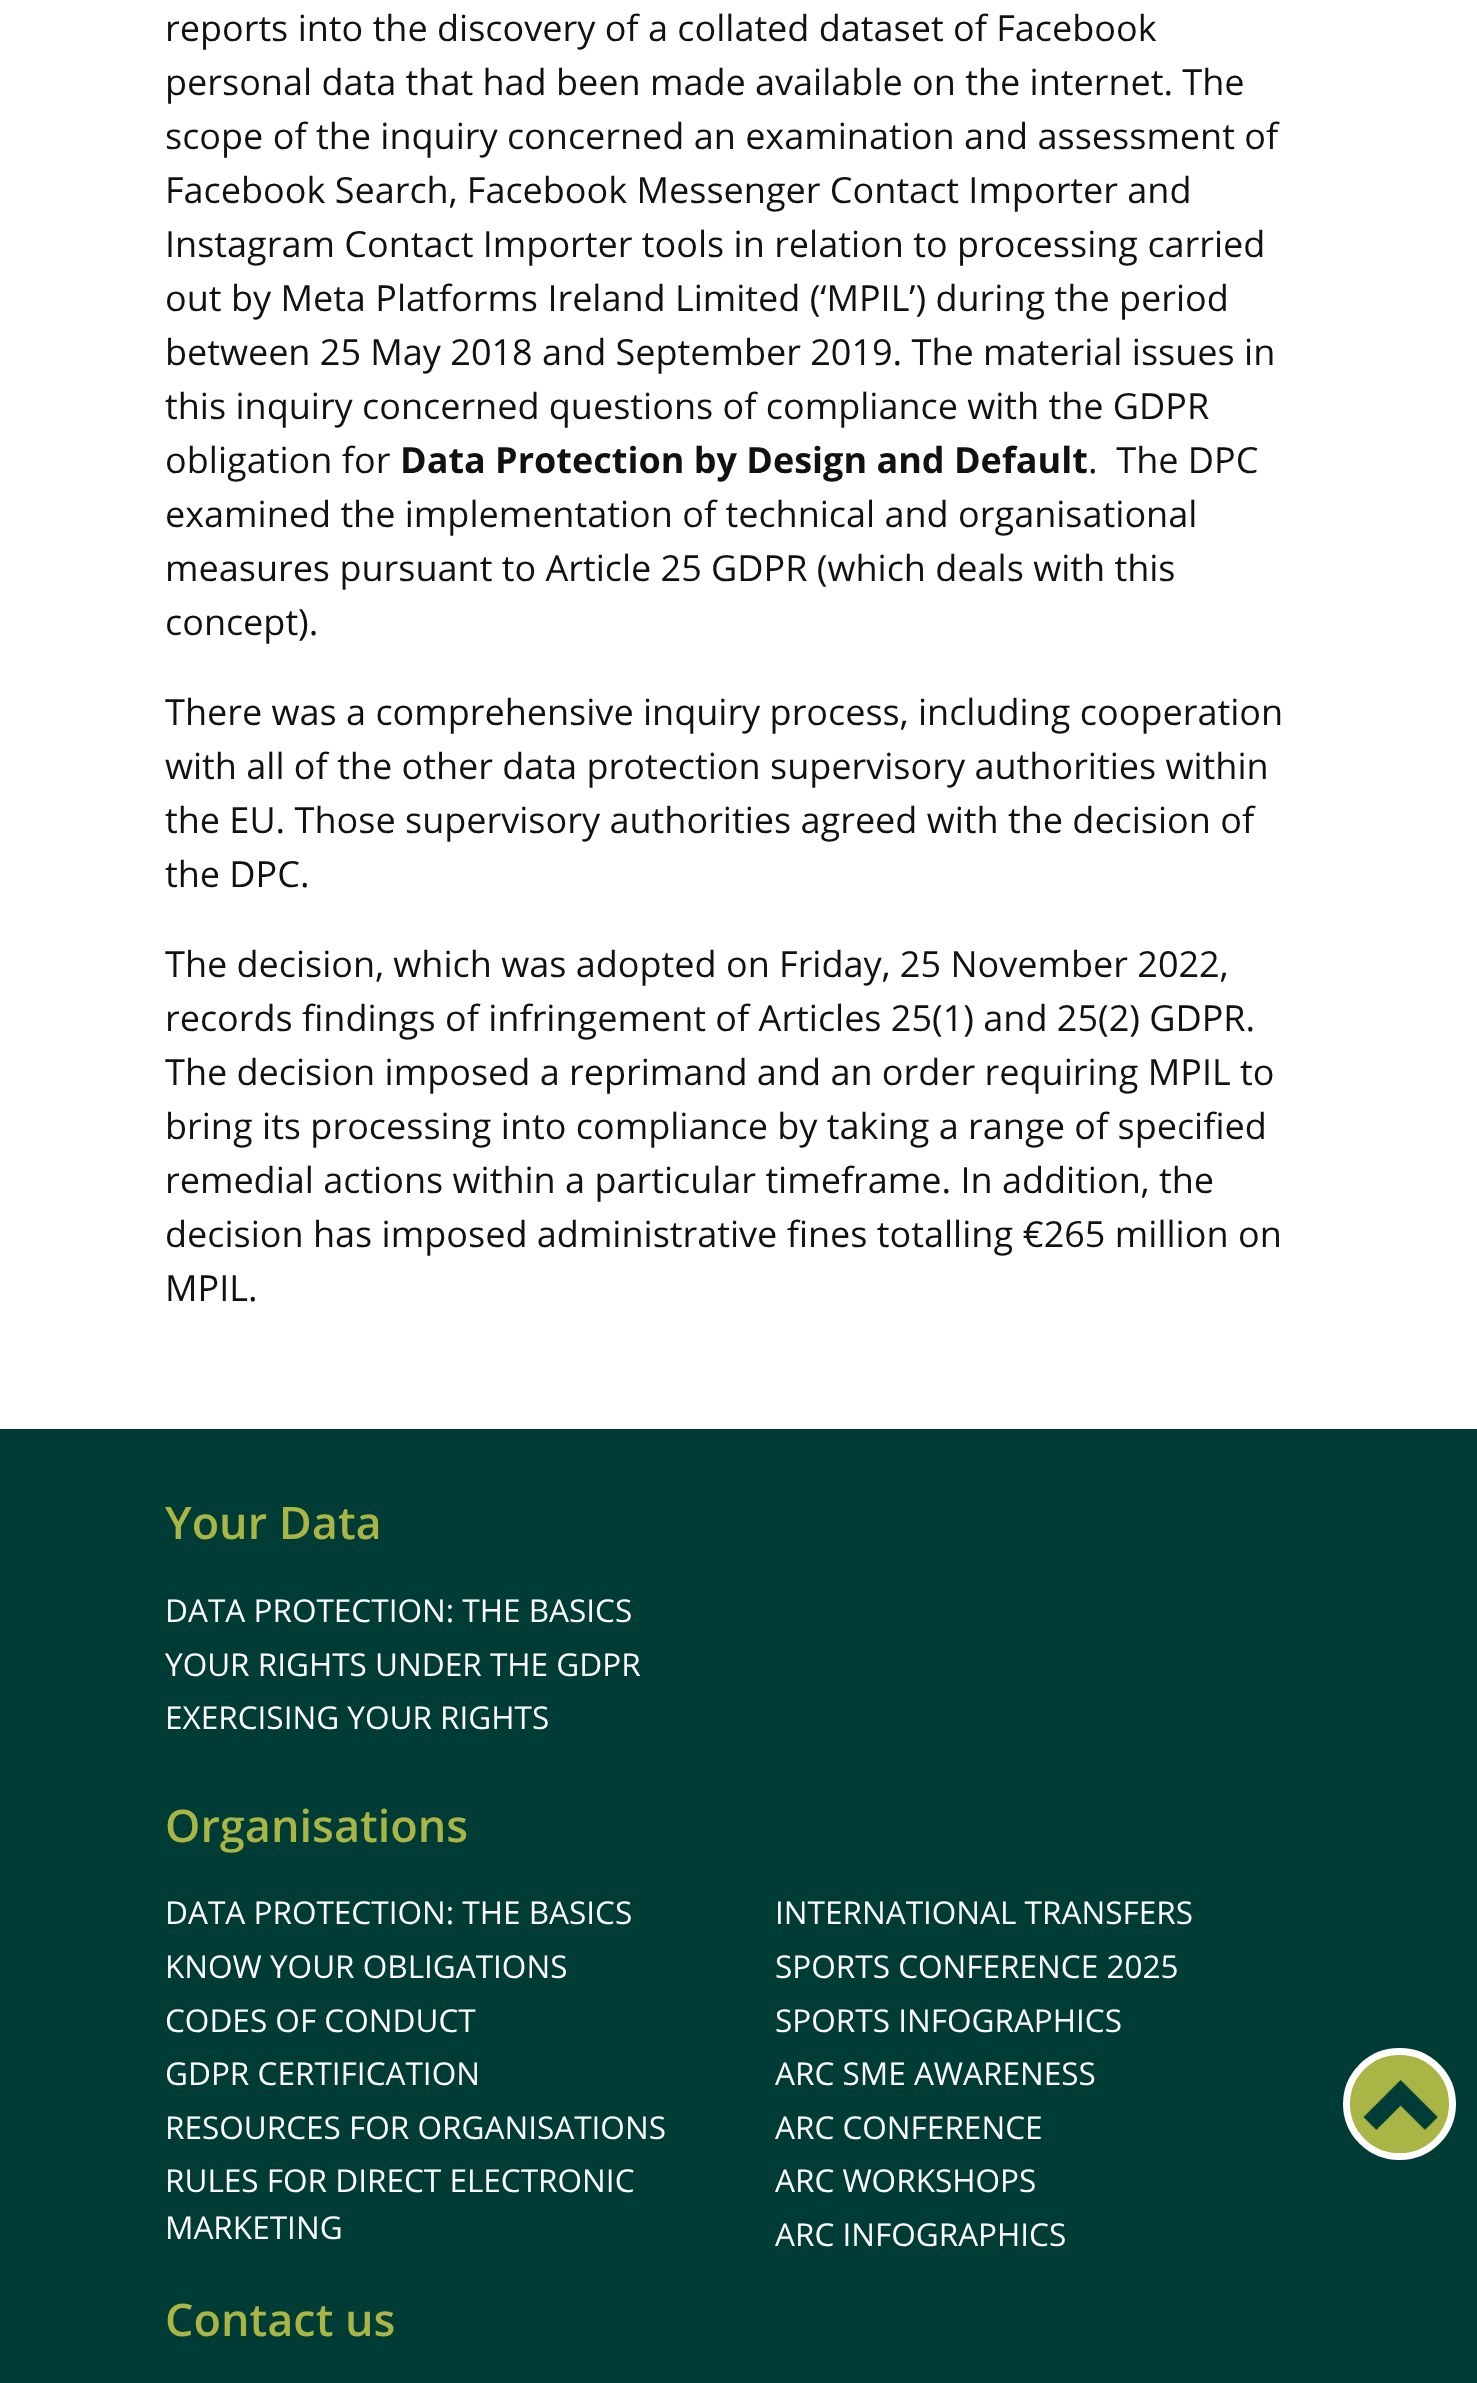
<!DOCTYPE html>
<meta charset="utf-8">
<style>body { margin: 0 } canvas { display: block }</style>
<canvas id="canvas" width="1477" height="2383"></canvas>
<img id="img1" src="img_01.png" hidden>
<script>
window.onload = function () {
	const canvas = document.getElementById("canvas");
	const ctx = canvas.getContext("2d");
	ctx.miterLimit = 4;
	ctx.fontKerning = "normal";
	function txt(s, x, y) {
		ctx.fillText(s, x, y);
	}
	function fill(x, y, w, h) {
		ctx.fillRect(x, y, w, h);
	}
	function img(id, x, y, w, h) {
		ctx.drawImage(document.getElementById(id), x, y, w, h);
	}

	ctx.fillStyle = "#FFFFFF";
	fill(0, 0, 1477, 2383);
	ctx.fillStyle = "#003C36";
	fill(0, 1429, 1477, 954);
	ctx.fillStyle = "#A9B545";
	ctx.beginPath();
	ctx.roundRect(1346.5, 2051.5, 106, 105, 52.5);
	ctx.fill();
	ctx.strokeStyle = "#FFFFFF";
	ctx.lineWidth = 7;
	ctx.stroke();
	img("img1", 1363, 2079, 75, 51);
	ctx.font = "36px Open Sans";
	ctx.fillStyle = "#111111";
	txt("reports into the discovery of a collated dataset of Facebook", 165, 41);
	txt("personal data that had been made available on the internet. The", 165, 95);
	txt("scope of the inquiry concerned an examination and assessment of", 165, 149);
	txt("Facebook Search, Facebook Messenger Contact Importer and", 165, 203);
	txt("Instagram Contact Importer tools in relation to processing carried", 165, 257);
	txt("out by Meta Platforms Ireland Limited (‘MPIL’) during the period", 165, 311);
	txt("between 25 May 2018 and September 2019. The material issues in", 165, 365);
	txt("this inquiry concerned questions of compliance with the GDPR", 165, 419);
	txt("obligation for", 165, 473);
	ctx.font = "bold 36px Open Sans";
	txt("Data Protection by Design and Default", 400, 473);
	ctx.font = "36px Open Sans";
	txt(".  The DPC", 1088, 473);
	txt("examined the implementation of technical and organisational", 165, 527);
	txt("measures pursuant to Article 25 GDPR (which deals with this", 165, 581);
	txt("concept).", 165, 635);
	txt("There was a comprehensive inquiry process, including cooperation", 165, 725);
	txt("with all of the other data protection supervisory authorities within", 165, 779);
	txt("the EU. Those supervisory authorities agreed with the decision of", 165, 833);
	txt("the DPC.", 165, 887);
	txt("The decision, which was adopted on Friday, 25 November 2022,", 165, 977);
	txt("records findings of infringement of Articles 25(1) and 25(2) GDPR.", 165, 1031);
	txt("The decision imposed a reprimand and an order requiring MPIL to", 165, 1085);
	txt("bring its processing into compliance by taking a range of specified", 165, 1139);
	txt("remedial actions within a particular timeframe. In addition, the", 165, 1193);
	txt("decision has imposed administrative fines totalling €265 million on", 165, 1247);
	txt("MPIL.", 165, 1301);
	ctx.font = "600 45px Open Sans";
	ctx.fillStyle = "#A9B545";
	txt("Your Data", 165, 1539);
	ctx.font = "31.5px Open Sans";
	ctx.fillStyle = "#FFFFFF";
	txt("DATA PROTECTION: THE BASICS", 165, 1622);
	txt("YOUR RIGHTS UNDER THE GDPR", 165, 1676);
	txt("EXERCISING YOUR RIGHTS", 165, 1729);
	ctx.font = "600 45px Open Sans";
	ctx.fillStyle = "#A9B545";
	txt("Organisations", 165, 1842);
	ctx.font = "31.5px Open Sans";
	ctx.fillStyle = "#FFFFFF";
	txt("DATA PROTECTION: THE BASICS", 165, 1924);
	txt("INTERNATIONAL TRANSFERS", 775, 1924);
	txt("KNOW YOUR OBLIGATIONS", 165, 1978);
	txt("SPORTS CONFERENCE 2025", 775, 1978);
	txt("CODES OF CONDUCT", 165, 2032);
	txt("SPORTS INFOGRAPHICS", 775, 2032);
	txt("GDPR CERTIFICATION", 165, 2085);
	txt("ARC SME AWARENESS", 775, 2085);
	txt("RESOURCES FOR ORGANISATIONS", 165, 2139);
	txt("ARC CONFERENCE", 775, 2139);
	txt("RULES FOR DIRECT ELECTRONIC", 165, 2192);
	txt("MARKETING", 165, 2239);
	txt("ARC WORKSHOPS", 775, 2192);
	txt("ARC INFOGRAPHICS", 775, 2246);
	ctx.font = "600 45px Open Sans";
	ctx.fillStyle = "#A9B545";
	txt("Contact us", 165, 2336);
};
</script>
